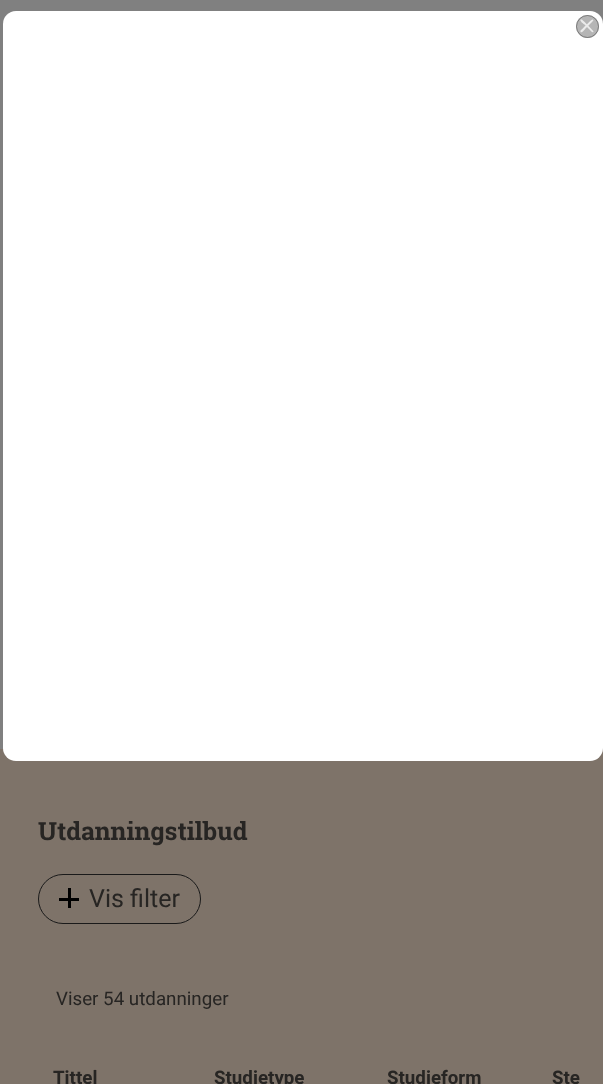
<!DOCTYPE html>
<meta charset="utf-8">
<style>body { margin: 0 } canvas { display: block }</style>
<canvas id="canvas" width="603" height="1084"></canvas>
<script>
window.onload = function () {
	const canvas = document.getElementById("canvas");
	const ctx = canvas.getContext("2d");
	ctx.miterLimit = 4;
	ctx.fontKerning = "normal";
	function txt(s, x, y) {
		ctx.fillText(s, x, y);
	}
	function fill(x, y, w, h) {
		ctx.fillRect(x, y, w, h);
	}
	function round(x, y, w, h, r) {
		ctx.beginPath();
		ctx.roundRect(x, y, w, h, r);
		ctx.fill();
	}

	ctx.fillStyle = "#808080";
	fill(0, 0, 603, 1084);
	ctx.fillStyle = "#7E7369";
	fill(0, 749, 603, 335);
	ctx.fillStyle = "#FFFFFF";
	round(3, 11, 600, 750, 13);
	ctx.fillStyle = "#B5B5B5";
	ctx.beginPath();
	ctx.arc(587.5, 26.5, 11.5, 0, Math.PI * 2);
	ctx.fill();
	ctx.beginPath();
	ctx.arc(587.5, 26.5, 11, 0, Math.PI * 2);
	ctx.strokeStyle = "rgba(36, 36, 36, 0.4)";
	ctx.stroke();
	ctx.fillStyle = "#EBEBEB";
	ctx.beginPath();
	ctx.moveTo(582, 19.5);
	ctx.bezierCurveTo(583.5, 21, 593.5, 30.5, 593.5, 31.5);
	ctx.bezierCurveTo(593, 33.5, 591, 31.5, 590, 30);
	ctx.lineTo(584.5, 24.5);
	ctx.bezierCurveTo(583.5, 24, 579.5, 21, 580.5, 19.5);
	ctx.bezierCurveTo(581, 19.5, 581.5, 19.5, 582, 19.5);
	ctx.closePath();
	ctx.fill();
	ctx.beginPath();
	ctx.moveTo(580.5, 30.5);
	ctx.bezierCurveTo(582, 29.5, 591.5, 19, 592.5, 19.5);
	ctx.bezierCurveTo(594.5, 20, 592.5, 21.5, 591, 23);
	ctx.lineTo(585.5, 28.5);
	ctx.bezierCurveTo(585, 29, 582, 33.5, 580.5, 32);
	ctx.bezierCurveTo(580.5, 31.5, 580.5, 31, 580.5, 30.5);
	ctx.closePath();
	ctx.fill();
	ctx.beginPath();
	ctx.roundRect(38.5, 874.5, 162, 49, 24.5);
	ctx.strokeStyle = "#1A1A1A";
	ctx.stroke();
	ctx.fillStyle = "#000000";
	fill(59, 898, 20, 3);
	fill(68, 888, 3, 20);
	ctx.font = "bold 25px Roboto Slab";
	ctx.fillStyle = "#272523";
	txt("Utdanningstilbud", 38, 840);
	ctx.font = "25px Roboto";
	txt("Vis filter", 89, 907);
	ctx.font = "18.75px Roboto";
	txt("Viser 54 utdanninger", 56, 1005);
	ctx.font = "bold 18.75px Roboto";
	txt("Tittel", 53, 1084);
	txt("Studietype", 214, 1084);
	txt("Studieform", 387, 1084);
	txt("Ste", 552, 1084);
};
</script>
